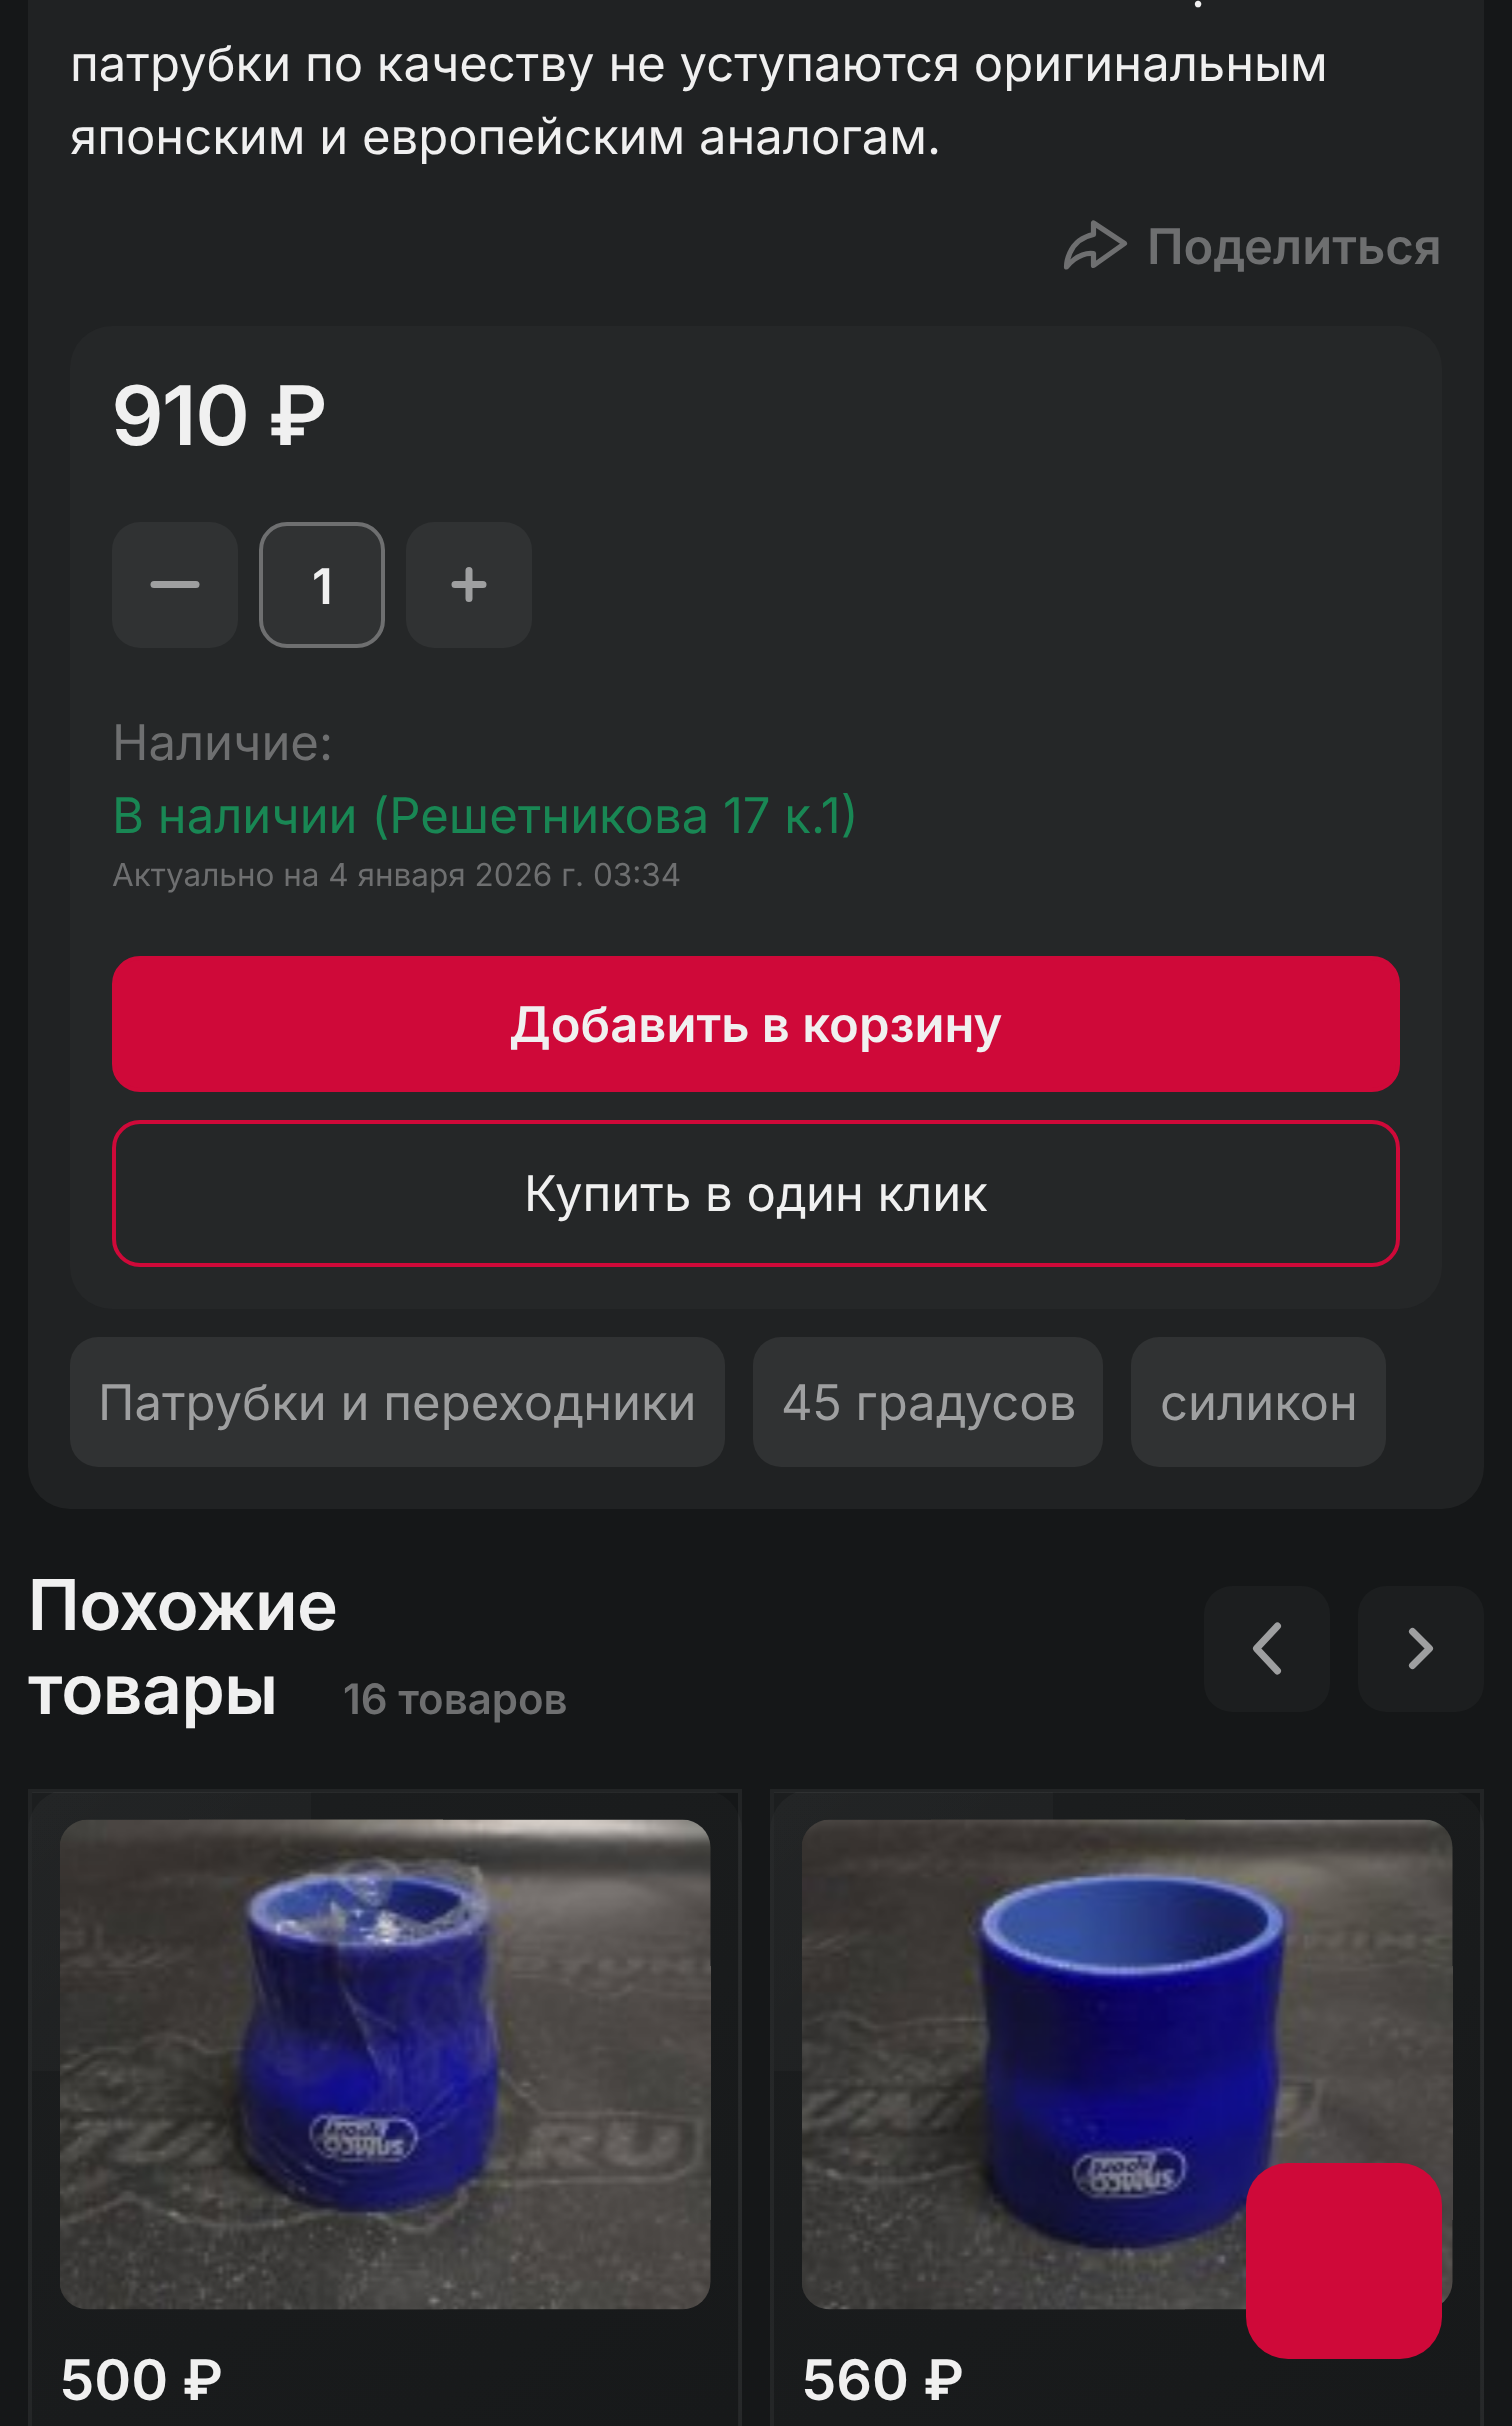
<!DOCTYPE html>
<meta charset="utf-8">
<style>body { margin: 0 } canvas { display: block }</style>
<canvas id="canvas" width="1512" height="2426"></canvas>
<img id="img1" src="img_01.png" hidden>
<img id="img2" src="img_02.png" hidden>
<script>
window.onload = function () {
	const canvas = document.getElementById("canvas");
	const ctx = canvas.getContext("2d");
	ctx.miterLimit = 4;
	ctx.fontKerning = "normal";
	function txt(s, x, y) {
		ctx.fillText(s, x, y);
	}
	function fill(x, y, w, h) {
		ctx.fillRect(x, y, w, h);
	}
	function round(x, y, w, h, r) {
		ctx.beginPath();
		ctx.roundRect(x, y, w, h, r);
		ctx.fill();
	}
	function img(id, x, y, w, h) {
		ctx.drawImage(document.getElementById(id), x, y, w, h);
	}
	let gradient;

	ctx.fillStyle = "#151718";
	fill(0, 0, 1512, 2426);
	ctx.fillStyle = "#202223";
	round(28, -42, 1456, 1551, 42);
	ctx.beginPath();
	ctx.moveTo(1124.5, 243.5);
	ctx.lineTo(1093.5, 223);
	ctx.lineTo(1093.5, 234.5);
	ctx.bezierCurveTo(1066.5, 240, 1066.5, 267, 1066.5, 267);
	ctx.bezierCurveTo(1066.5, 267, 1078, 251.5, 1093.5, 253.5);
	ctx.lineTo(1093.5, 265.5);
	ctx.closePath();
	ctx.strokeStyle = "#6E6F70";
	ctx.lineWidth = 5.2;
	ctx.lineJoin = "round";
	ctx.stroke();
	ctx.fillStyle = "#252728";
	round(70, 326, 1372, 983, 42);
	ctx.fillStyle = "#303233";
	round(112, 522, 126, 126, 28);
	ctx.beginPath();
	ctx.moveTo(196, 584.5);
	ctx.lineTo(154, 584.5);
	ctx.strokeStyle = "#9E9FA0";
	ctx.lineWidth = 7;
	ctx.lineCap = "round";
	ctx.lineJoin = "miter";
	ctx.stroke();
	ctx.beginPath();
	ctx.roundRect(261, 524, 122, 122, 26);
	ctx.fill();
	ctx.strokeStyle = "#6E6F70";
	ctx.lineWidth = 4;
	ctx.stroke();
	round(406, 522, 126, 126, 28);
	ctx.beginPath();
	ctx.moveTo(469, 570.5);
	ctx.lineTo(469, 598.5);
	ctx.moveTo(483, 584.5);
	ctx.lineTo(455, 584.5);
	ctx.strokeStyle = "#9E9FA0";
	ctx.lineWidth = 7;
	ctx.stroke();
	ctx.fillStyle = "#CF0939";
	ctx.beginPath();
	ctx.roundRect(114, 958, 1284, 132, 26);
	ctx.fill();
	ctx.strokeStyle = "#CF0939";
	ctx.lineWidth = 4;
	ctx.stroke();
	ctx.beginPath();
	ctx.roundRect(114, 1122, 1284, 143, 26);
	ctx.stroke();
	ctx.fillStyle = "#303233";
	round(70, 1337, 655, 130, 28);
	round(753, 1337, 350, 130, 28);
	round(1131, 1337, 255, 130, 28);
	ctx.fillStyle = "#1C1E1F";
	round(1204, 1586, 126, 126, 28);
	ctx.beginPath();
	ctx.moveTo(1277.5, 1671);
	ctx.lineTo(1256.5, 1648.5);
	ctx.lineTo(1277.5, 1626);
	ctx.strokeStyle = "#9E9FA0";
	ctx.lineWidth = 7;
	ctx.lineJoin = "round";
	ctx.stroke();
	round(1358, 1586, 126, 126, 28);
	ctx.beginPath();
	ctx.moveTo(1412.5, 1631.5);
	ctx.lineTo(1429.5, 1648.5);
	ctx.lineTo(1412.5, 1665.5);
	ctx.stroke();
	ctx.save();
	ctx.beginPath();
	ctx.roundRect(28, 1789, 714, 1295, 42);
	ctx.clip();
	gradient = ctx.createLinearGradient(-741, 1838, 97, 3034);
	gradient.addColorStop(0, "#1C1E1F");
	gradient.addColorStop(1, "#141617");
	ctx.fillStyle = gradient;
	fill(28, 1813, 4, 613);
	gradient = ctx.createLinearGradient(-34, 1838, 804, 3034);
	gradient.addColorStop(0, "#1C1E1F");
	gradient.addColorStop(1, "#141617");
	ctx.fillStyle = gradient;
	fill(32, 1792, 707, 634);
	gradient = ctx.createLinearGradient(673, 1838, 1511, 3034);
	gradient.addColorStop(0, "#1C1E1F");
	gradient.addColorStop(1, "#141617");
	ctx.fillStyle = gradient;
	fill(739, 1815, 3, 611);
	ctx.restore();
	ctx.strokeStyle = "rgba(255, 255, 255, 0.06)";
	ctx.lineWidth = 4;
	ctx.lineJoin = "miter";
	ctx.strokeRect(30, 1791, 710, 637);
	gradient = ctx.createLinearGradient(-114, 1937, 884, 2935);
	gradient.addColorStop(0, "rgba(255, 255, 255, 0.03)");
	gradient.addColorStop(0.5, "rgba(255, 255, 255, 0)");
	ctx.fillStyle = gradient;
	fill(32, 1792, 279, 279);
	img("img1", 60, 1819, 651, 491);
	ctx.save();
	ctx.beginPath();
	ctx.roundRect(770, 1789, 714, 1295, 42);
	ctx.clip();
	gradient = ctx.createLinearGradient(1.1, 1838, 839, 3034);
	gradient.addColorStop(0, "#1C1E1F");
	gradient.addColorStop(1, "#141617");
	ctx.fillStyle = gradient;
	fill(770, 1813, 4, 613);
	gradient = ctx.createLinearGradient(708, 1838, 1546, 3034);
	gradient.addColorStop(0, "#1C1E1F");
	gradient.addColorStop(1, "#141617");
	ctx.fillStyle = gradient;
	fill(774, 1792, 707, 634);
	gradient = ctx.createLinearGradient(1415, 1838, 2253, 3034);
	gradient.addColorStop(0, "#1C1E1F");
	gradient.addColorStop(1, "#141617");
	ctx.fillStyle = gradient;
	fill(1481, 1815, 3, 611);
	ctx.restore();
	ctx.strokeRect(772, 1791, 710, 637);
	gradient = ctx.createLinearGradient(628, 1937, 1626, 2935);
	gradient.addColorStop(0, "rgba(255, 255, 255, 0.03)");
	gradient.addColorStop(0.5, "rgba(255, 255, 255, 0)");
	ctx.fillStyle = gradient;
	fill(774, 1792, 279, 279);
	img("img2", 802, 1819, 651, 491);
	ctx.fillStyle = "#CF0939";
	round(1246, 2163, 196, 196, 42);
	ctx.font = "49px Inter";
	ctx.fillStyle = "#F0F0F0";
	txt(".", 1191, 7);
	txt("патрубки по качеству не уступаются оригинальным", 70, 81);
	txt("японским и европейским аналогам.", 70, 154);
	ctx.font = "600 49px 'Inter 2'";
	ctx.fillStyle = "#6E6F70";
	txt("Поделиться", 1147, 264);
	ctx.font = "600 82px Inter";
	ctx.fillStyle = "#F0F0F0";
	txt("910 ₽", 112, 445);
	ctx.font = "600 49px 'Inter 2'";
	txt("1", 312, 604);
	ctx.font = "49px Inter";
	ctx.fillStyle = "#6E6F70";
	txt("Наличие:", 112, 760);
	ctx.fillStyle = "#198754";
	txt("В наличии (Решетникова 17 к.1)", 112, 833);
	ctx.font = "31.5px Inter";
	ctx.fillStyle = "#6E6F70";
	txt("Актуально на 4 января 2026 г. 03:34", 112, 886);
	ctx.font = "600 49px 'Inter 2'";
	ctx.fillStyle = "#F0F0F0";
	txt("Добавить в корзину", 509, 1042);
	ctx.font = "49px Inter";
	txt("Купить в один клик", 524, 1211);
	ctx.fillStyle = "#9E9FA0";
	txt("Патрубки и переходники", 98, 1420);
	txt("45 градусов", 781, 1420);
	txt("силикон", 1160, 1420);
	ctx.font = "600 70px 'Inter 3'";
	ctx.fillStyle = "#F0F0F0";
	txt("Похожие", 28, 1630);
	txt("товары", 28, 1714);
	ctx.font = "600 42px 'Inter 2'";
	ctx.fillStyle = "#6E6F70";
	txt("16 товаров", 343, 1714);
	ctx.font = "600 56px 'Inter 2'";
	ctx.fillStyle = "#F0F0F0";
	txt("500 ₽", 60, 2400);
	txt("560 ₽", 802, 2400);
};
</script>
